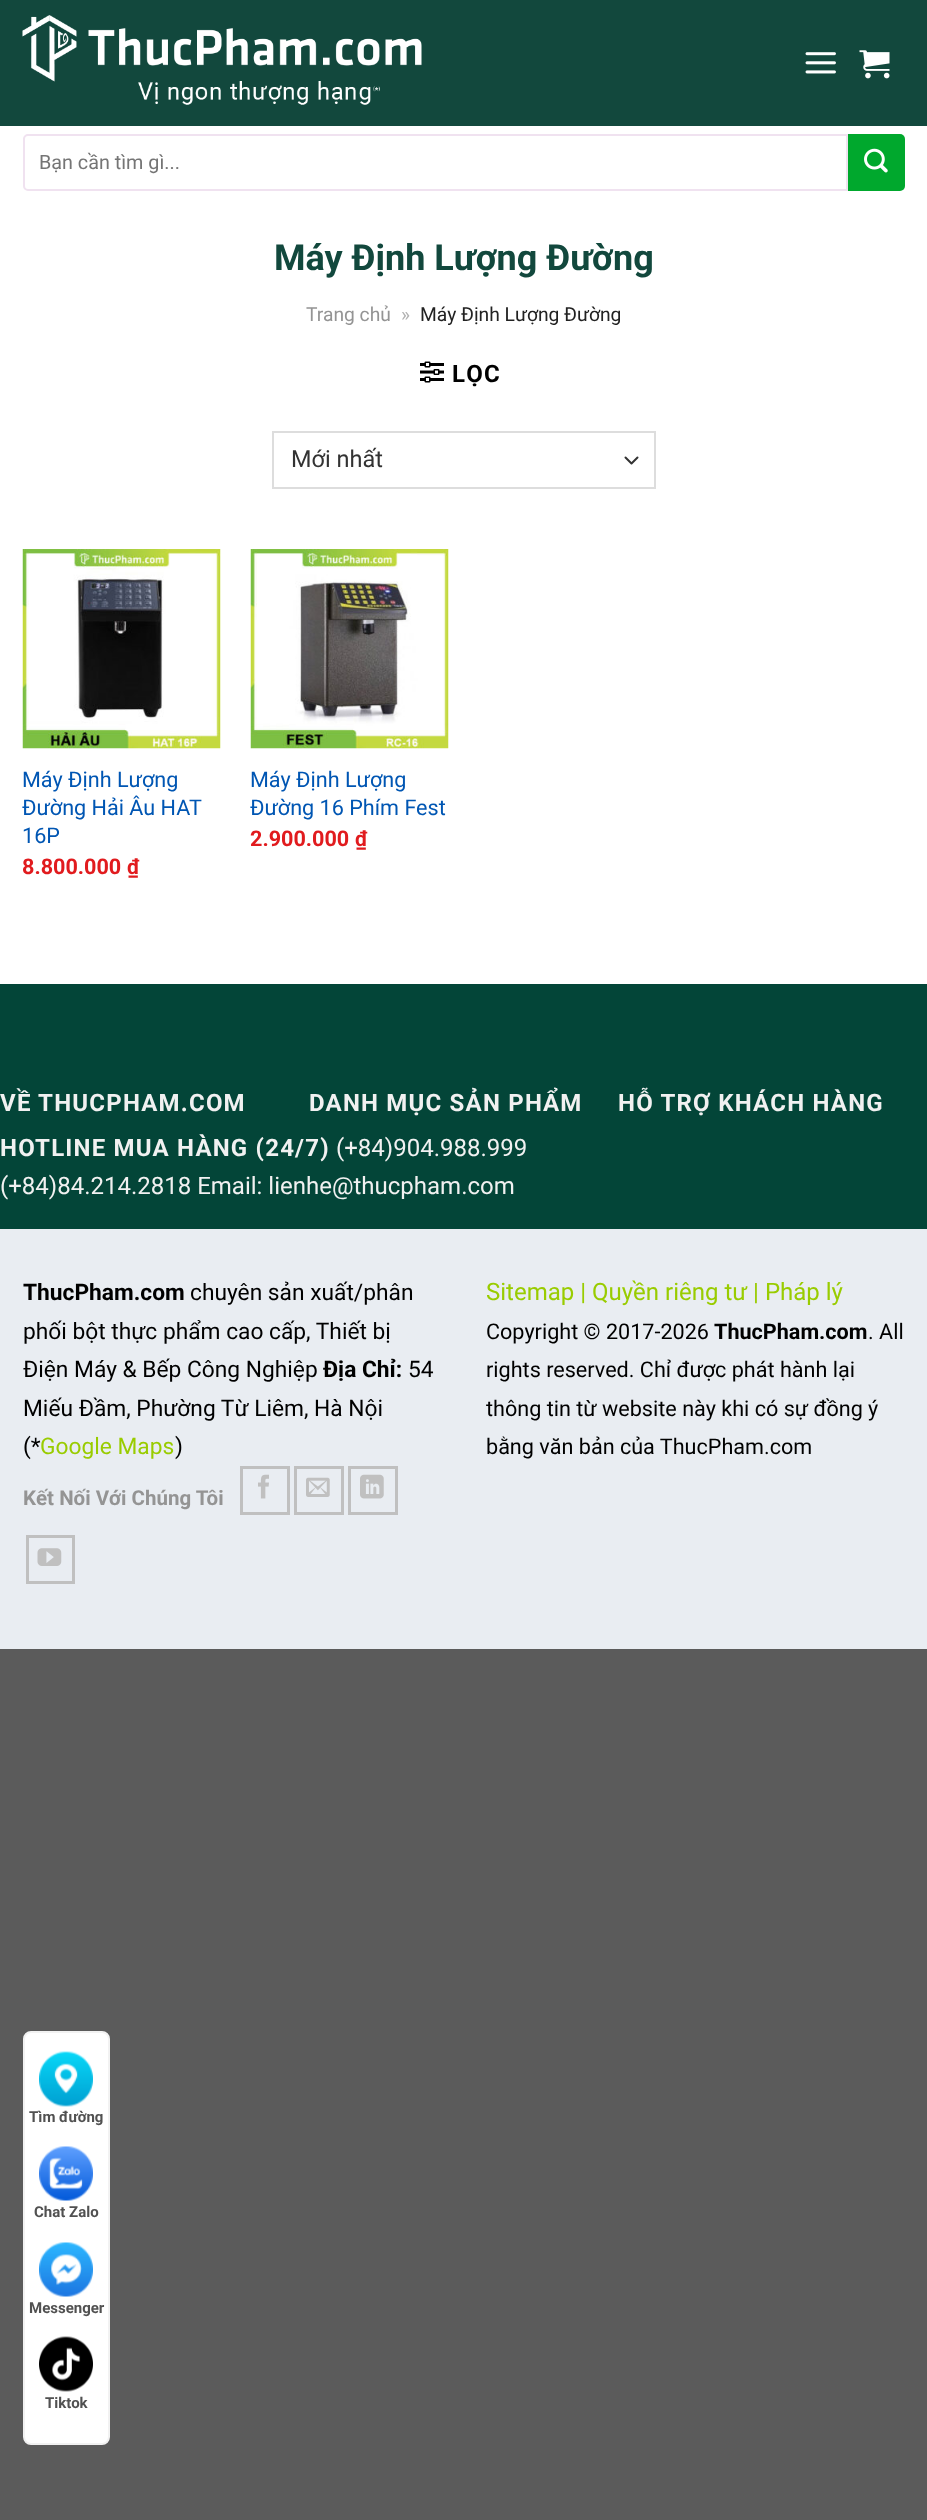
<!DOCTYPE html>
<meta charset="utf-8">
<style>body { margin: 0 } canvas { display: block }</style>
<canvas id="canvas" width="927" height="2520"></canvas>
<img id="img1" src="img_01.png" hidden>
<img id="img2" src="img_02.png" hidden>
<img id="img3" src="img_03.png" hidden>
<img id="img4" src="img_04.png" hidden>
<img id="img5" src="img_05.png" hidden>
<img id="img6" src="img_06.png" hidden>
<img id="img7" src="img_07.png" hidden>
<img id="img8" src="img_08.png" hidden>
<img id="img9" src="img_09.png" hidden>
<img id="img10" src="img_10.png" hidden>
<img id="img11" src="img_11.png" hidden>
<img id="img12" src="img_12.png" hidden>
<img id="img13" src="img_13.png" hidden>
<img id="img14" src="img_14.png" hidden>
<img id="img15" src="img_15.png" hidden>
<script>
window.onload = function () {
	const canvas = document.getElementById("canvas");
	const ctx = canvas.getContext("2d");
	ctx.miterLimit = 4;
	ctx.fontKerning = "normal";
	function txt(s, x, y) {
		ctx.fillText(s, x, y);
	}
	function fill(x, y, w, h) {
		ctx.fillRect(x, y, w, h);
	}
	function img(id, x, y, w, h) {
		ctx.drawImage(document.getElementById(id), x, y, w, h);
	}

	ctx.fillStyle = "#5B5B5B";
	fill(0, 0, 927, 2520);
	ctx.fillStyle = "#FFFFFF";
	fill(0, 126, 927, 858);
	ctx.fillStyle = "#12483D";
	fill(0, 0, 927, 126);
	img("img1", 22, 15, 400, 90);
	img("img2", 805, 52, 31, 22);
	img("img3", 859, 50, 31, 29);
	ctx.beginPath();
	ctx.roundRect(24, 135, 823, 55, [4, 0, 0, 4]);
	ctx.strokeStyle = "#F0E2F0";
	ctx.lineWidth = 2;
	ctx.stroke();
	ctx.fillStyle = "#00A82D";
	ctx.beginPath();
	ctx.roundRect(848, 134, 57, 57, [0, 5, 5, 0]);
	ctx.fill();
	img("img4", 864, 148, 24, 25);
	img("img5", 420, 361, 24, 22);
	ctx.beginPath();
	ctx.moveTo(625.5, 457.5);
	ctx.lineTo(631.5, 463.5);
	ctx.lineTo(637.5, 457.5);
	ctx.strokeStyle = "#333333";
	ctx.lineCap = "round";
	ctx.lineJoin = "round";
	ctx.stroke();
	ctx.strokeStyle = "#DDDDDD";
	ctx.lineJoin = "miter";
	ctx.strokeRect(273, 432, 382, 56);
	img("img6", 22, 549, 199, 200);
	img("img7", 250, 549, 199, 200);
	ctx.fillStyle = "#034538";
	fill(0, 984, 927, 245);
	ctx.fillStyle = "#E9EDF2";
	fill(0, 1229, 927, 420);
	ctx.strokeStyle = "#C0C0C0";
	ctx.lineWidth = 3;
	ctx.strokeRect(241.5, 1467.5, 47, 46);
	img("img8", 258, 1474, 11, 25);
	ctx.strokeRect(295.5, 1467.5, 47, 46);
	img("img9", 306, 1477, 24, 20);
	ctx.strokeRect(349.5, 1467.5, 47, 46);
	img("img10", 360, 1474, 24, 25);
	ctx.strokeRect(27.5, 1536.5, 46, 46);
	img("img11", 37, 1548, 25, 18);
	ctx.fillStyle = "#FFFFFF";
	ctx.beginPath();
	ctx.roundRect(24, 2032, 85, 412, 7);
	ctx.fill();
	ctx.strokeStyle = "#F2F2F2";
	ctx.lineWidth = 2;
	ctx.stroke();
	img("img12", 39, 2051, 54, 56);
	img("img13", 39, 2146, 54, 55);
	img("img14", 39, 2242, 54, 55);
	img("img15", 39, 2336, 54, 56);
	ctx.font = "19.75px Roboto";
	ctx.fillStyle = "#757575";
	txt("Bạn cần tìm gì...", 39, 169);
	ctx.font = "bold 36px Roboto";
	ctx.fillStyle = "#12483D";
	txt("Máy Định Lượng Đường", 274, 270);
	ctx.font = "19.25px Roboto";
	ctx.fillStyle = "#949494";
	txt("Trang chủ", 306, 321);
	ctx.fillStyle = "#B2B2B2";
	txt("»", 401, 321);
	ctx.fillStyle = "#222222";
	txt("Máy Định Lượng Đường", 420, 321);
	ctx.letterSpacing = "1.2px";
	ctx.font = "bold 24px Roboto";
	ctx.fillStyle = "#000000";
	txt("LỌC", 452, 382);
	ctx.letterSpacing = "0px";
	ctx.font = "23.5px Roboto";
	ctx.fillStyle = "#333333";
	txt("Mới nhất", 291, 467);
	ctx.font = "21.6px Roboto";
	ctx.fillStyle = "#0056B3";
	txt("Máy Định Lượng", 22, 787);
	txt("Đường Hải Âu HAT", 22, 815);
	txt("16P", 22, 843);
	ctx.font = "bold 21.6px Roboto";
	ctx.fillStyle = "#E11B1E";
	txt("8.800.000", 22, 874);
	ctx.font = "bold 21px Roboto";
	txt("₫", 127, 874);
	ctx.font = "21.6px Roboto";
	ctx.fillStyle = "#0056B3";
	txt("Máy Định Lượng", 250, 787);
	txt("Đường 16 Phím Fest", 250, 815);
	ctx.font = "bold 21.6px Roboto";
	ctx.fillStyle = "#E11B1E";
	txt("2.900.000", 250, 846);
	ctx.font = "bold 21px Roboto";
	txt("₫", 355, 846);
	ctx.letterSpacing = "1.2px";
	ctx.font = "bold 24px Roboto";
	ctx.fillStyle = "#F1F1F1";
	txt("VỀ THUCPHAM.COM", 0, 1111);
	txt("DANH MỤC SẢN PHẨM", 309, 1111);
	txt("HỖ TRỢ KHÁCH HÀNG", 618, 1111);
	txt("HOTLINE MUA HÀNG (24/7)", 0, 1156);
	ctx.letterSpacing = "0px";
	ctx.font = "24px Roboto";
	txt("(+84)904.988.999", 336, 1156);
	txt("(+84)84.214.2818 Email: lienhe@thucpham.com", 0, 1194);
	ctx.font = "bold 22.75px Roboto";
	ctx.fillStyle = "#000000";
	txt("ThucPham.com", 23, 1300);
	ctx.font = "22.75px Roboto";
	txt("chuyên sản xuất/phân", 190, 1300);
	txt("phối bột thực phẩm cao cấp, Thiết bị", 23, 1339);
	txt("Điện Máy & Bếp Công Nghiệp", 23, 1377);
	ctx.font = "bold 22.75px Roboto";
	txt("Địa Chỉ:", 323, 1377);
	ctx.font = "22.75px Roboto";
	txt("54", 408, 1377);
	txt("Miếu Đầm, Phường Từ Liêm, Hà Nội", 23, 1416);
	txt("(*", 23, 1454);
	ctx.fillStyle = "#99CC00";
	txt("Google Maps", 40, 1454);
	ctx.fillStyle = "#000000";
	txt(")", 175, 1454);
	ctx.font = "bold 20.5px Roboto";
	ctx.fillStyle = "#949494";
	txt("Kết Nối Với Chúng Tôi", 23, 1505);
	ctx.font = "24px Roboto";
	ctx.fillStyle = "#99CC00";
	txt("Sitemap | Quyền riêng tư | Pháp lý", 486, 1300);
	ctx.font = "21.6px Roboto";
	ctx.fillStyle = "#000000";
	txt("Copyright © 2017-2026", 486, 1339);
	ctx.font = "bold 21.6px Roboto";
	txt("ThucPham.com", 714, 1339);
	ctx.font = "21.6px Roboto";
	txt(". All", 868, 1339);
	txt("rights reserved. Chỉ được phát hành lại", 486, 1377);
	txt("thông tin từ website này khi có sự đồng ý", 486, 1416);
	txt("bằng văn bản của ThucPham.com", 486, 1454);
	ctx.font = "bold 15px Roboto";
	ctx.fillStyle = "#515151";
	txt("Tìm đường", 29, 2122);
	txt("Chat Zalo", 34, 2217);
	txt("Messenger", 29, 2313);
	txt("Tiktok", 45, 2408);
};
</script>
